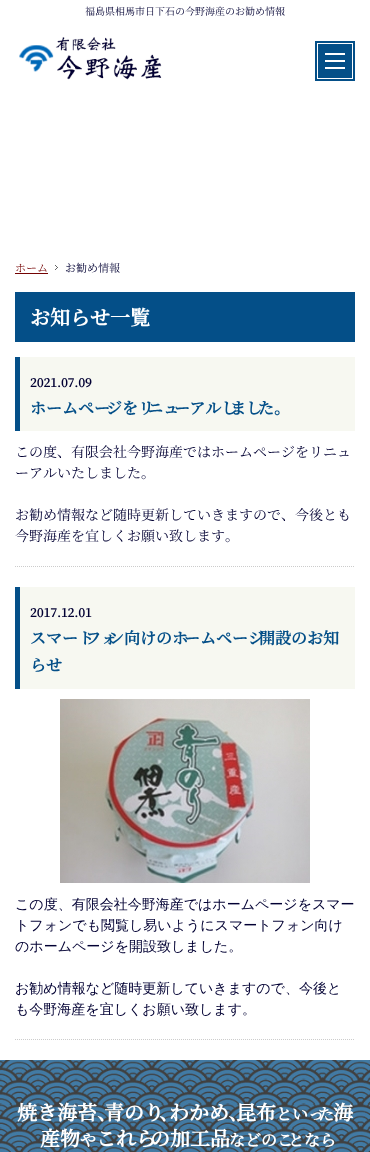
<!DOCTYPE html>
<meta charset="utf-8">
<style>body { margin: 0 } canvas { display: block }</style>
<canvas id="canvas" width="370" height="1152"></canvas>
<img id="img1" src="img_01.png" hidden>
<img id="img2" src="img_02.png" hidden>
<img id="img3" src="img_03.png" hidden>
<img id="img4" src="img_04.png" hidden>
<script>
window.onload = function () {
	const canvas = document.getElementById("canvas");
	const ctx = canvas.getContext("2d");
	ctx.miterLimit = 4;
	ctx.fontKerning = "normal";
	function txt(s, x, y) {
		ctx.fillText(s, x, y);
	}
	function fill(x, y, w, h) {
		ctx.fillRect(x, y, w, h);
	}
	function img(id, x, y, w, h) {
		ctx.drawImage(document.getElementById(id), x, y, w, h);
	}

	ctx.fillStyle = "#FFFFFF";
	fill(0, 0, 370, 1152);
	img("img1", 19, 37, 143, 43);
	ctx.fillStyle = "#044F88";
	fill(315, 41, 40, 40);
	ctx.strokeStyle = "#FFFFFF";
	ctx.strokeRect(317.5, 43.5, 35, 35);
	ctx.fillStyle = "#FFFFFF";
	fill(325, 60, 20, 2);
	fill(325, 53, 20, 2);
	fill(325, 67, 20, 2);
	ctx.fillStyle = "#740303";
	fill(15, 273, 33, 1);
	img("img2", 55, 265, 3, 5);
	ctx.fillStyle = "#044F88";
	fill(15, 292, 340, 50);
	ctx.fillStyle = "#F7F8F1";
	fill(20, 357, 335, 74);
	ctx.fillStyle = "#044F88";
	fill(15, 357, 5, 74);
	ctx.beginPath();
	ctx.moveTo(15, 566.5);
	ctx.lineTo(355, 566.5);
	ctx.strokeStyle = "#CCCCCC";
	ctx.setLineDash([1, 1]);
	ctx.stroke();
	ctx.fillStyle = "#F7F8F1";
	fill(20, 587, 335, 102);
	ctx.fillStyle = "#044F88";
	fill(15, 587, 5, 102);
	img("img3", 60, 699, 250, 184);
	ctx.beginPath();
	ctx.moveTo(15, 1039.5);
	ctx.lineTo(355, 1039.5);
	ctx.stroke();
	img("img4", 0, 1060, 370, 92);
	ctx.font = "10px Noto Serif CJK JP";
	ctx.fillStyle = "#020033";
	txt("福島県相馬市日下石の今野海産のお勧め情報", 85, 15);
	ctx.font = "11px Noto Serif CJK JP";
	ctx.fillStyle = "#740303";
	txt("ホーム", 15, 272);
	ctx.fillStyle = "#020033";
	txt("お勧め情報", 65, 272);
	ctx.font = "bold 20px Noto Serif CJK JP";
	ctx.fillStyle = "#FFFFFF";
	txt("お知らせ一覧", 30, 325);
	ctx.font = "bold 12px Noto Serif CJK JP";
	ctx.fillStyle = "#020033";
	txt("2021.07.09", 30, 387);
	ctx.font = "bold 16px Noto Serif CJK JP";
	ctx.fillStyle = "#044F88";
	txt("ホームペー", 30, 414);
	txt("ジをリ", 106, 414);
	txt("ニュ", 147, 414);
	txt("ーアルし", 174, 414);
	txt("まし", 230, 414);
	txt("た。", 258, 414);
	ctx.font = "14px Noto Serif CJK JP";
	ctx.fillStyle = "#020033";
	txt("この度、有限会社今野海産ではホームページをリニュ", 15, 457);
	txt("ーアルいたしました。", 15, 478);
	txt("お勧め情報など随時更新していきますので、今後とも", 15, 520);
	txt("今野海産を宜しくお願い致します。", 15, 541);
	ctx.font = "bold 12px Noto Serif CJK JP";
	txt("2017.12.01", 30, 617);
	ctx.font = "bold 16px Noto Serif CJK JP";
	ctx.fillStyle = "#044F88";
	txt("スマート", 30, 644);
	txt("フォ", 85, 644);
	txt("ン向けのホ", 108, 644);
	txt("ームページ", 184, 644);
	txt("開設のお知", 259, 644);
	txt("らせ", 30, 671);
	ctx.font = "500 14px WenQuanYi Zen Hei";
	ctx.fillStyle = "#020033";
	txt("この度、有限会社今野海産ではホームページをスマー", 15, 909);
	txt("トフォンでも閲覧し易いようにスマートフォン向け", 15, 930);
	txt("のホームページを開設致しました。", 15, 951);
	txt("お勧め情報など随時更新していきますので、今後と", 15, 993);
	txt("も今野海産を宜しくお願い致します。", 15, 1014);
	ctx.font = "bold 20px Noto Serif CJK JP";
	ctx.fillStyle = "#FFFFFF";
	txt("焼き海苔、", 17, 1120);
	txt("青のり", 104, 1120);
	txt("、", 159, 1120);
	txt("わかめ、", 169, 1120);
	txt("昆布", 236, 1120);
	ctx.font = "bold 16px Noto Serif CJK JP";
	txt("といっ", 276, 1120);
	txt("た", 318, 1120);
	ctx.font = "bold 20px Noto Serif CJK JP";
	txt("海", 333, 1120);
	txt("産物", 40, 1146);
	ctx.font = "bold 16px Noto Serif CJK JP";
	txt("や", 80, 1146);
	ctx.font = "bold 20px Noto Serif CJK JP";
	txt("これら", 96, 1146);
	txt("の加工品", 150, 1146);
	ctx.font = "bold 16px Noto Serif CJK JP";
	txt("などのこ", 229, 1146);
	txt("となら", 288, 1146);
};
</script>
